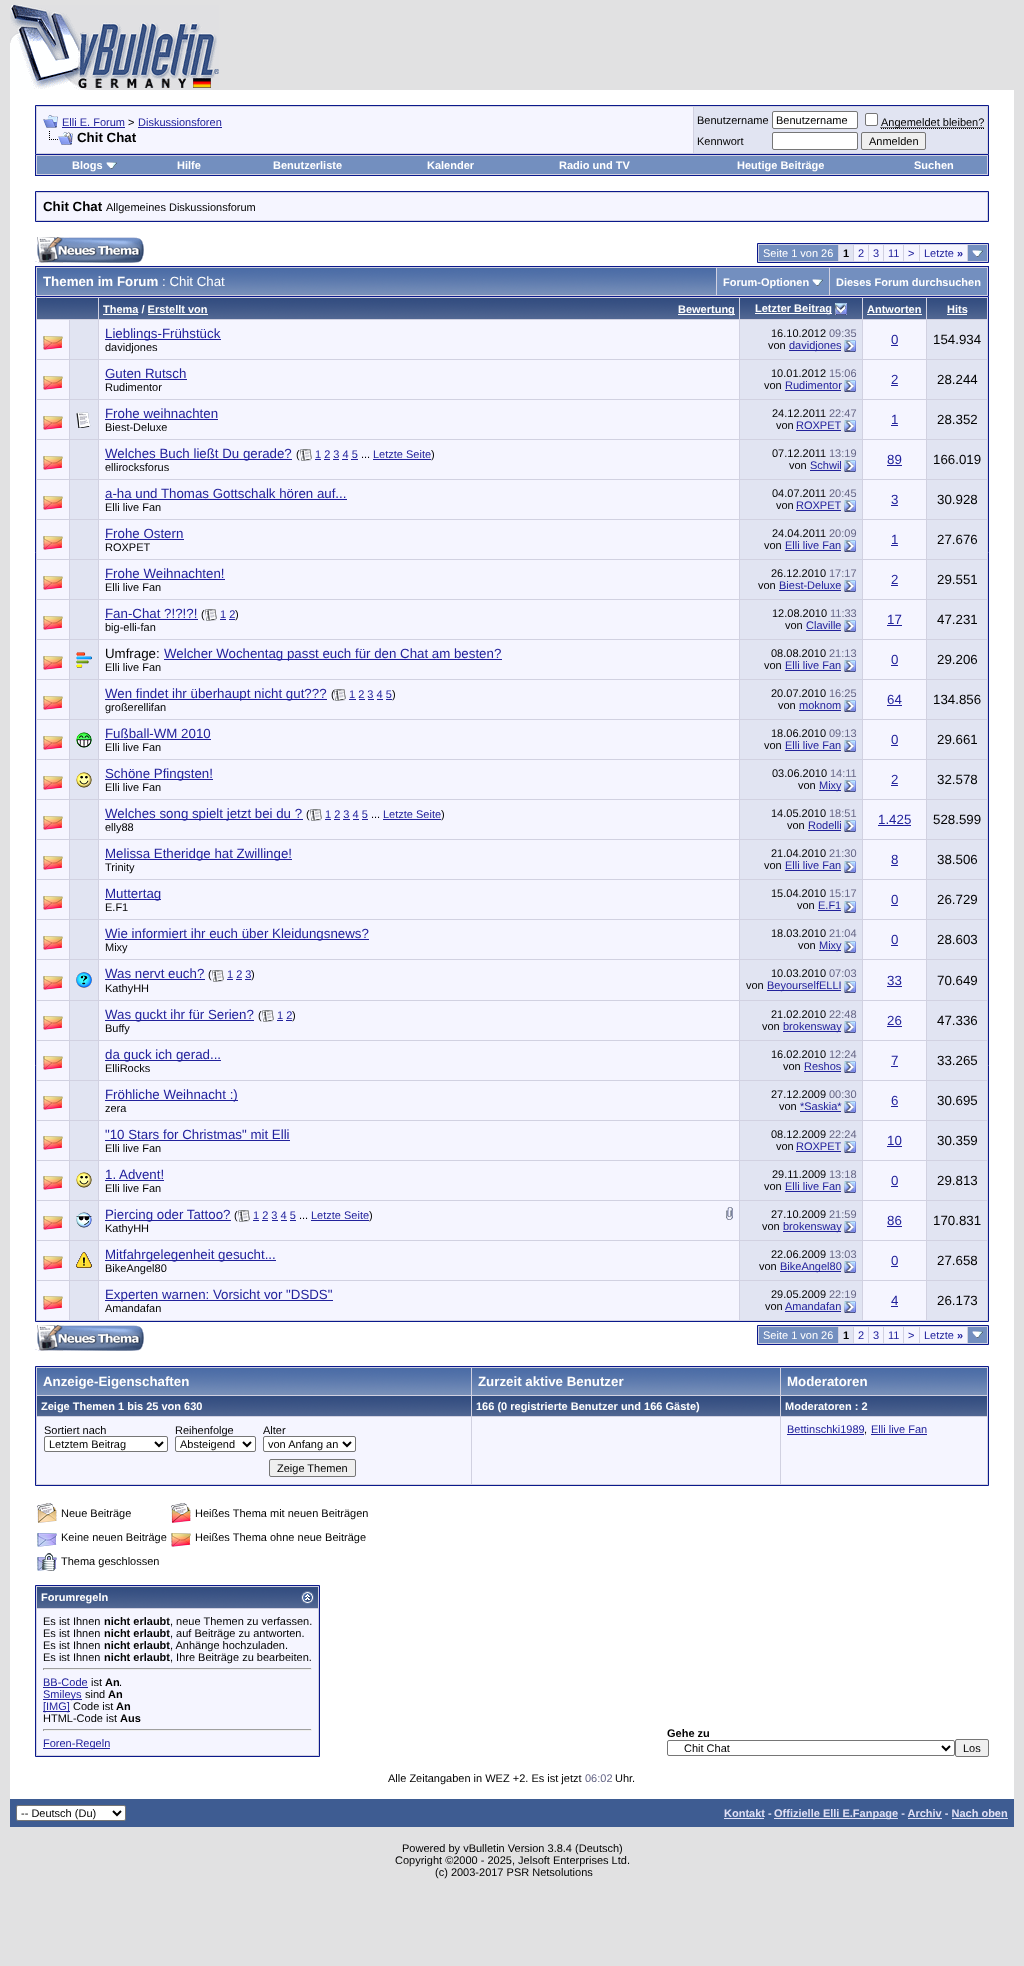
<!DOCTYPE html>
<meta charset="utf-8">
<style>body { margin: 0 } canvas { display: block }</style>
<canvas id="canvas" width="1024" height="1966"></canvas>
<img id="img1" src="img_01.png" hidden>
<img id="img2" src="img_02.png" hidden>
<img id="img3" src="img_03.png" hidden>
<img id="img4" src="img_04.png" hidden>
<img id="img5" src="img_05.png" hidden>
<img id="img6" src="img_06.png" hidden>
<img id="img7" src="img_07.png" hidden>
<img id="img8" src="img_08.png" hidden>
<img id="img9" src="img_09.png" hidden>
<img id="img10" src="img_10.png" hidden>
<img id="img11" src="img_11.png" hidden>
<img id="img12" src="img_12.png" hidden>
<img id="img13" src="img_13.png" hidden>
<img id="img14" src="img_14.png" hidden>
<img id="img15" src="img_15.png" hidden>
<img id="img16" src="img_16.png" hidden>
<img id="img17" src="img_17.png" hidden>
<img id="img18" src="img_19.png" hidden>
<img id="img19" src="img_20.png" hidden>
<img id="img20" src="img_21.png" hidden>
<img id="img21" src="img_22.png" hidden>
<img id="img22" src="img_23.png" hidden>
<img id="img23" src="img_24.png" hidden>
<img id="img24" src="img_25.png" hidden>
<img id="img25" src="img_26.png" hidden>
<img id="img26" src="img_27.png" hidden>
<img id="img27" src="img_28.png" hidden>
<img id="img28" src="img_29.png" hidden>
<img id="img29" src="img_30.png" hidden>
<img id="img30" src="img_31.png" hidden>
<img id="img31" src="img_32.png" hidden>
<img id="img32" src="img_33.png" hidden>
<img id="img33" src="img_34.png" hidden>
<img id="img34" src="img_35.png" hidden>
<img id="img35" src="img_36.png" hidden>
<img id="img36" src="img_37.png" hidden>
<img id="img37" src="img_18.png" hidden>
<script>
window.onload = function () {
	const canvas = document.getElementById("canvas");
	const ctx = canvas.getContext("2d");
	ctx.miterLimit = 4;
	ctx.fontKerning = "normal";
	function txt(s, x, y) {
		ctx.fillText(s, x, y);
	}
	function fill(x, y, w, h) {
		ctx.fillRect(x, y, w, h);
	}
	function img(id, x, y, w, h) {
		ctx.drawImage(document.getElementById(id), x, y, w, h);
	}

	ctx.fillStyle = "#E1E1E2";
	fill(0, 0, 1024, 1966);
	img("img1", 10, 5, 209, 85);
	ctx.fillStyle = "#FFFFFF";
	fill(10, 90, 1004, 1709);
	ctx.fillStyle = "#D1D1E1";
	ctx.beginPath();
	ctx.rect(35.5, 105.5, 953, 49);
	ctx.fill();
	ctx.strokeStyle = "#0B198C";
	ctx.stroke();
	ctx.fillStyle = "#F5F5FF";
	fill(37, 107, 656, 46);
	img("img2", 43, 115, 15, 13);
	ctx.fillStyle = "#22229C";
	fill(62, 127, 63, 1);
	fill(138, 127, 84, 1);
	img("img3", 49, 131, 24, 14);
	ctx.fillStyle = "#E1E4F2";
	fill(694, 107, 293, 46);
	ctx.fillStyle = "#FFFFFF";
	ctx.beginPath();
	ctx.roundRect(772.5, 111.5, 85, 17, 1.5);
	ctx.fill();
	ctx.strokeStyle = "#767676";
	ctx.stroke();
	ctx.beginPath();
	ctx.roundRect(865.5, 113.5, 12, 12, 1.5);
	ctx.fill();
	ctx.stroke();
	ctx.beginPath();
	ctx.moveTo(881, 128.5);
	ctx.lineTo(984, 128.5);
	ctx.strokeStyle = "#000000";
	ctx.setLineDash([1, 1]);
	ctx.stroke();
	ctx.beginPath();
	ctx.moveTo(880.5, 127.5);
	ctx.lineTo(984, 127.5);
	ctx.stroke();
	ctx.beginPath();
	ctx.roundRect(772.5, 132.5, 85, 17, 1.5);
	ctx.fill();
	ctx.strokeStyle = "#767676";
	ctx.setLineDash([]);
	ctx.stroke();
	ctx.fillStyle = "#EFEFEF";
	ctx.beginPath();
	ctx.roundRect(861.5, 132.5, 64, 17, 1.5);
	ctx.fill();
	ctx.stroke();
	ctx.fillStyle = "#D1D1E1";
	fill(36, 155, 952, 20);
	ctx.fillStyle = "#0B198C";
	fill(988, 155, 1, 21);
	fill(35, 175, 954, 1);
	fill(35, 155, 1, 21);
	ctx.fillStyle = "#738FBF";
	fill(37, 156, 950, 18);
	img("img4", 106, 162, 11, 7);
	ctx.fillStyle = "#D1D1E1";
	ctx.beginPath();
	ctx.rect(35.5, 191.5, 953, 30);
	ctx.fill();
	ctx.strokeStyle = "#0B198C";
	ctx.stroke();
	ctx.fillStyle = "#F5F5FF";
	fill(37, 193, 950, 27);
	img("img5", 35, 237, 109, 26);
	ctx.fillStyle = "#D1D1E1";
	ctx.beginPath();
	ctx.rect(757.5, 243.5, 231, 19);
	ctx.fill();
	ctx.stroke();
	ctx.fillStyle = "#738FBF";
	fill(759, 245, 79, 16);
	ctx.fillStyle = "#E1E4F2";
	fill(839, 245, 14, 16);
	ctx.fillStyle = "#F5F5FF";
	fill(854, 245, 14, 16);
	fill(869, 245, 14, 16);
	fill(884, 245, 19, 16);
	fill(904, 245, 15, 16);
	fill(920, 245, 47, 16);
	ctx.fillStyle = "#738FBF";
	fill(968, 245, 19, 16);
	img("img4", 972, 250, 11, 7);
	ctx.fillStyle = "#D1D1E1";
	fill(36, 267, 952, 29);
	ctx.fillStyle = "#0B198C";
	fill(35, 266, 954, 1);
	fill(988, 266, 1, 30);
	fill(35, 266, 1, 30);
	img("img6", 37, 268, 679, 27);
	ctx.fillStyle = "#738FBF";
	fill(717, 268, 112, 27);
	img("img4", 812, 279, 11, 7);
	fill(830, 268, 157, 27);
	ctx.fillStyle = "#D1D1E1";
	ctx.beginPath();
	ctx.rect(35.5, 296.5, 953, 1025);
	ctx.fill();
	ctx.stroke();
	img("img7", 37, 298, 61, 21);
	img("img8", 99, 298, 640, 21);
	ctx.fillStyle = "#FFFFFF";
	fill(103, 314, 35, 1);
	fill(678, 314, 57, 1);
	fill(148, 314, 60, 1);
	img("img9", 740, 298, 122, 21);
	fill(755, 313, 77, 1);
	img("img10", 835, 303, 12, 12);
	img("img11", 863, 298, 63, 21);
	fill(867, 314, 55, 1);
	img("img12", 927, 298, 60, 21);
	fill(947, 314, 20, 1);
	ctx.fillStyle = "#F5F5FF";
	fill(37, 320, 32, 39);
	img("img13", 43, 336, 20, 14);
	ctx.fillStyle = "#E1E4F2";
	fill(70, 320, 28, 39);
	ctx.fillStyle = "#F5F5FF";
	fill(99, 320, 640, 39);
	ctx.fillStyle = "#22229C";
	fill(105, 339, 116, 1);
	ctx.fillStyle = "#E1E4F2";
	fill(740, 320, 122, 39);
	ctx.fillStyle = "#22229C";
	fill(789, 350, 52, 1);
	img("img14", 844, 340, 12, 12);
	ctx.fillStyle = "#F5F5FF";
	fill(863, 320, 63, 39);
	ctx.fillStyle = "#22229C";
	fill(891, 345, 7, 1);
	ctx.fillStyle = "#E1E4F2";
	fill(927, 320, 60, 39);
	ctx.fillStyle = "#F5F5FF";
	fill(37, 360, 32, 39);
	img("img13", 43, 376, 20, 14);
	ctx.fillStyle = "#E1E4F2";
	fill(70, 360, 28, 39);
	ctx.fillStyle = "#F5F5FF";
	fill(99, 360, 640, 39);
	ctx.fillStyle = "#22229C";
	fill(105, 379, 82, 1);
	ctx.fillStyle = "#E1E4F2";
	fill(740, 360, 122, 39);
	ctx.fillStyle = "#22229C";
	fill(785, 390, 56, 1);
	img("img14", 844, 380, 12, 12);
	ctx.fillStyle = "#F5F5FF";
	fill(863, 360, 63, 39);
	ctx.fillStyle = "#22229C";
	fill(891, 385, 7, 1);
	ctx.fillStyle = "#E1E4F2";
	fill(927, 360, 60, 39);
	ctx.fillStyle = "#F5F5FF";
	fill(37, 400, 32, 39);
	img("img13", 43, 416, 20, 14);
	ctx.fillStyle = "#E1E4F2";
	fill(70, 400, 28, 39);
	img("img15", 76, 412, 15, 16);
	ctx.fillStyle = "#F5F5FF";
	fill(99, 400, 640, 39);
	ctx.fillStyle = "#22229C";
	fill(105, 419, 113, 1);
	ctx.fillStyle = "#E1E4F2";
	fill(740, 400, 122, 39);
	ctx.fillStyle = "#22229C";
	fill(796, 430, 45, 1);
	img("img14", 844, 420, 12, 12);
	ctx.fillStyle = "#F5F5FF";
	fill(863, 400, 63, 39);
	ctx.fillStyle = "#22229C";
	fill(891, 425, 7, 1);
	ctx.fillStyle = "#E1E4F2";
	fill(927, 400, 60, 39);
	ctx.fillStyle = "#F5F5FF";
	fill(37, 440, 32, 39);
	img("img13", 43, 456, 20, 14);
	ctx.fillStyle = "#E1E4F2";
	fill(70, 440, 28, 39);
	ctx.fillStyle = "#F5F5FF";
	fill(99, 440, 640, 39);
	ctx.fillStyle = "#22229C";
	fill(105, 459, 187, 1);
	img("img16", 300, 449, 12, 12);
	fill(315, 459, 6, 1);
	fill(324, 459, 6, 1);
	fill(333, 459, 6, 1);
	fill(342, 459, 6, 1);
	fill(351, 459, 7, 1);
	fill(373, 459, 58, 1);
	ctx.fillStyle = "#E1E4F2";
	fill(740, 440, 122, 39);
	ctx.fillStyle = "#22229C";
	fill(810, 470, 31, 1);
	img("img14", 844, 460, 12, 12);
	ctx.fillStyle = "#F5F5FF";
	fill(863, 440, 63, 39);
	ctx.fillStyle = "#22229C";
	fill(887, 465, 15, 1);
	ctx.fillStyle = "#E1E4F2";
	fill(927, 440, 60, 39);
	ctx.fillStyle = "#F5F5FF";
	fill(37, 480, 32, 39);
	img("img13", 43, 496, 20, 14);
	ctx.fillStyle = "#E1E4F2";
	fill(70, 480, 28, 39);
	ctx.fillStyle = "#F5F5FF";
	fill(99, 480, 640, 39);
	ctx.fillStyle = "#22229C";
	fill(105, 499, 242, 1);
	ctx.fillStyle = "#E1E4F2";
	fill(740, 480, 122, 39);
	ctx.fillStyle = "#22229C";
	fill(796, 510, 45, 1);
	img("img14", 844, 500, 12, 12);
	ctx.fillStyle = "#F5F5FF";
	fill(863, 480, 63, 39);
	ctx.fillStyle = "#22229C";
	fill(891, 505, 7, 1);
	ctx.fillStyle = "#E1E4F2";
	fill(927, 480, 60, 39);
	ctx.fillStyle = "#F5F5FF";
	fill(37, 520, 32, 39);
	img("img13", 43, 536, 20, 14);
	ctx.fillStyle = "#E1E4F2";
	fill(70, 520, 28, 39);
	ctx.fillStyle = "#F5F5FF";
	fill(99, 520, 640, 39);
	ctx.fillStyle = "#22229C";
	fill(105, 539, 79, 1);
	ctx.fillStyle = "#E1E4F2";
	fill(740, 520, 122, 39);
	ctx.fillStyle = "#22229C";
	fill(785, 550, 56, 1);
	img("img14", 844, 540, 12, 12);
	ctx.fillStyle = "#F5F5FF";
	fill(863, 520, 63, 39);
	ctx.fillStyle = "#22229C";
	fill(891, 545, 7, 1);
	ctx.fillStyle = "#E1E4F2";
	fill(927, 520, 60, 39);
	ctx.fillStyle = "#F5F5FF";
	fill(37, 560, 32, 39);
	img("img13", 43, 576, 20, 14);
	ctx.fillStyle = "#E1E4F2";
	fill(70, 560, 28, 39);
	ctx.fillStyle = "#F5F5FF";
	fill(99, 560, 640, 39);
	ctx.fillStyle = "#22229C";
	fill(105, 579, 120, 1);
	ctx.fillStyle = "#E1E4F2";
	fill(740, 560, 122, 39);
	ctx.fillStyle = "#22229C";
	fill(779, 590, 62, 1);
	img("img14", 844, 580, 12, 12);
	ctx.fillStyle = "#F5F5FF";
	fill(863, 560, 63, 39);
	ctx.fillStyle = "#22229C";
	fill(891, 585, 7, 1);
	ctx.fillStyle = "#E1E4F2";
	fill(927, 560, 60, 39);
	ctx.fillStyle = "#F5F5FF";
	fill(37, 600, 32, 39);
	img("img13", 43, 616, 20, 14);
	ctx.fillStyle = "#E1E4F2";
	fill(70, 600, 28, 39);
	ctx.fillStyle = "#F5F5FF";
	fill(99, 600, 640, 39);
	ctx.fillStyle = "#22229C";
	fill(105, 619, 93, 1);
	img("img16", 205, 609, 12, 12);
	fill(220, 619, 6, 1);
	fill(229, 619, 6, 1);
	ctx.fillStyle = "#E1E4F2";
	fill(740, 600, 122, 39);
	ctx.fillStyle = "#22229C";
	fill(806, 630, 35, 1);
	img("img14", 844, 620, 12, 12);
	ctx.fillStyle = "#F5F5FF";
	fill(863, 600, 63, 39);
	ctx.fillStyle = "#22229C";
	fill(887, 625, 15, 1);
	ctx.fillStyle = "#E1E4F2";
	fill(927, 600, 60, 39);
	ctx.fillStyle = "#F5F5FF";
	fill(37, 640, 32, 39);
	img("img13", 43, 656, 20, 14);
	ctx.fillStyle = "#E1E4F2";
	fill(70, 640, 28, 39);
	img("img17", 76, 652, 16, 16);
	ctx.fillStyle = "#F5F5FF";
	fill(99, 640, 640, 39);
	ctx.fillStyle = "#22229C";
	fill(164, 659, 338, 1);
	ctx.fillStyle = "#E1E4F2";
	fill(740, 640, 122, 39);
	ctx.fillStyle = "#22229C";
	fill(785, 670, 56, 1);
	img("img14", 844, 660, 12, 12);
	ctx.fillStyle = "#F5F5FF";
	fill(863, 640, 63, 39);
	ctx.fillStyle = "#22229C";
	fill(891, 665, 7, 1);
	ctx.fillStyle = "#E1E4F2";
	fill(927, 640, 60, 39);
	ctx.fillStyle = "#F5F5FF";
	fill(37, 680, 32, 39);
	img("img13", 43, 696, 20, 14);
	ctx.fillStyle = "#E1E4F2";
	fill(70, 680, 28, 39);
	ctx.fillStyle = "#F5F5FF";
	fill(99, 680, 640, 39);
	ctx.fillStyle = "#22229C";
	fill(105, 699, 222, 1);
	fill(349, 699, 7, 1);
	fill(359, 699, 6, 1);
	fill(368, 699, 6, 1);
	fill(377, 699, 6, 1);
	fill(386, 699, 6, 1);
	ctx.fillStyle = "#E1E4F2";
	fill(740, 680, 122, 39);
	ctx.fillStyle = "#22229C";
	fill(799, 710, 42, 1);
	img("img14", 844, 700, 12, 12);
	ctx.fillStyle = "#F5F5FF";
	fill(863, 680, 63, 39);
	ctx.fillStyle = "#22229C";
	fill(887, 705, 15, 1);
	ctx.fillStyle = "#E1E4F2";
	fill(927, 680, 60, 39);
	ctx.fillStyle = "#F5F5FF";
	fill(37, 720, 32, 39);
	img("img13", 43, 736, 20, 14);
	ctx.fillStyle = "#E1E4F2";
	fill(70, 720, 28, 39);
	img("img18", 76, 732, 16, 16);
	ctx.fillStyle = "#F5F5FF";
	fill(99, 720, 640, 39);
	ctx.fillStyle = "#22229C";
	fill(105, 739, 106, 1);
	ctx.fillStyle = "#E1E4F2";
	fill(740, 720, 122, 39);
	ctx.fillStyle = "#22229C";
	fill(785, 750, 56, 1);
	img("img14", 844, 740, 12, 12);
	ctx.fillStyle = "#F5F5FF";
	fill(863, 720, 63, 39);
	ctx.fillStyle = "#22229C";
	fill(891, 745, 7, 1);
	ctx.fillStyle = "#E1E4F2";
	fill(927, 720, 60, 39);
	ctx.fillStyle = "#F5F5FF";
	fill(37, 760, 32, 39);
	img("img13", 43, 776, 20, 14);
	ctx.fillStyle = "#E1E4F2";
	fill(70, 760, 28, 39);
	img("img19", 76, 772, 16, 16);
	ctx.fillStyle = "#F5F5FF";
	fill(99, 760, 640, 39);
	ctx.fillStyle = "#22229C";
	fill(105, 779, 108, 1);
	ctx.fillStyle = "#E1E4F2";
	fill(740, 760, 122, 39);
	ctx.fillStyle = "#22229C";
	fill(819, 790, 22, 1);
	img("img14", 844, 780, 12, 12);
	ctx.fillStyle = "#F5F5FF";
	fill(863, 760, 63, 39);
	ctx.fillStyle = "#22229C";
	fill(891, 785, 7, 1);
	ctx.fillStyle = "#E1E4F2";
	fill(927, 760, 60, 39);
	ctx.fillStyle = "#F5F5FF";
	fill(37, 800, 32, 39);
	img("img13", 43, 816, 20, 14);
	ctx.fillStyle = "#E1E4F2";
	fill(70, 800, 28, 39);
	ctx.fillStyle = "#F5F5FF";
	fill(99, 800, 640, 39);
	ctx.fillStyle = "#22229C";
	fill(105, 819, 198, 1);
	img("img16", 310, 809, 12, 12);
	fill(325, 819, 6, 1);
	fill(334, 819, 6, 1);
	fill(343, 819, 7, 1);
	fill(353, 819, 6, 1);
	fill(362, 819, 6, 1);
	fill(383, 819, 58, 1);
	ctx.fillStyle = "#E1E4F2";
	fill(740, 800, 122, 39);
	ctx.fillStyle = "#22229C";
	fill(808, 830, 33, 1);
	img("img14", 844, 820, 12, 12);
	ctx.fillStyle = "#F5F5FF";
	fill(863, 800, 63, 39);
	ctx.fillStyle = "#22229C";
	fill(878, 825, 33, 1);
	ctx.fillStyle = "#E1E4F2";
	fill(927, 800, 60, 39);
	ctx.fillStyle = "#F5F5FF";
	fill(37, 840, 32, 39);
	img("img13", 43, 856, 20, 14);
	ctx.fillStyle = "#E1E4F2";
	fill(70, 840, 28, 39);
	ctx.fillStyle = "#F5F5FF";
	fill(99, 840, 640, 39);
	ctx.fillStyle = "#22229C";
	fill(105, 859, 187, 1);
	ctx.fillStyle = "#E1E4F2";
	fill(740, 840, 122, 39);
	ctx.fillStyle = "#22229C";
	fill(785, 870, 56, 1);
	img("img14", 844, 861, 12, 12);
	ctx.fillStyle = "#F5F5FF";
	fill(863, 840, 63, 39);
	ctx.fillStyle = "#22229C";
	fill(891, 865, 7, 1);
	ctx.fillStyle = "#E1E4F2";
	fill(927, 840, 60, 39);
	ctx.fillStyle = "#F5F5FF";
	fill(37, 880, 32, 39);
	img("img13", 43, 896, 20, 14);
	ctx.fillStyle = "#E1E4F2";
	fill(70, 880, 28, 39);
	ctx.fillStyle = "#F5F5FF";
	fill(99, 880, 640, 39);
	ctx.fillStyle = "#22229C";
	fill(105, 899, 56, 1);
	ctx.fillStyle = "#E1E4F2";
	fill(740, 880, 122, 39);
	ctx.fillStyle = "#22229C";
	fill(818, 910, 23, 1);
	img("img14", 844, 901, 12, 12);
	ctx.fillStyle = "#F5F5FF";
	fill(863, 880, 63, 39);
	ctx.fillStyle = "#22229C";
	fill(891, 905, 7, 1);
	ctx.fillStyle = "#E1E4F2";
	fill(927, 880, 60, 39);
	ctx.fillStyle = "#F5F5FF";
	fill(37, 920, 32, 39);
	img("img13", 43, 936, 20, 14);
	ctx.fillStyle = "#E1E4F2";
	fill(70, 920, 28, 39);
	ctx.fillStyle = "#F5F5FF";
	fill(99, 920, 640, 39);
	ctx.fillStyle = "#22229C";
	fill(105, 939, 264, 1);
	ctx.fillStyle = "#E1E4F2";
	fill(740, 920, 122, 39);
	ctx.fillStyle = "#22229C";
	fill(819, 950, 22, 1);
	img("img14", 844, 941, 12, 12);
	ctx.fillStyle = "#F5F5FF";
	fill(863, 920, 63, 39);
	ctx.fillStyle = "#22229C";
	fill(891, 945, 7, 1);
	ctx.fillStyle = "#E1E4F2";
	fill(927, 920, 60, 39);
	ctx.fillStyle = "#F5F5FF";
	fill(37, 960, 32, 40);
	img("img13", 43, 976, 20, 14);
	ctx.fillStyle = "#E1E4F2";
	fill(70, 960, 28, 40);
	img("img20", 76, 972, 16, 16);
	ctx.fillStyle = "#F5F5FF";
	fill(99, 960, 640, 40);
	ctx.fillStyle = "#22229C";
	fill(105, 979, 100, 1);
	img("img16", 212, 970, 12, 12);
	fill(227, 979, 6, 1);
	fill(236, 979, 6, 1);
	fill(245, 979, 6, 1);
	ctx.fillStyle = "#E1E4F2";
	fill(740, 960, 122, 40);
	ctx.fillStyle = "#22229C";
	fill(767, 990, 74, 1);
	img("img14", 844, 981, 12, 12);
	ctx.fillStyle = "#F5F5FF";
	fill(863, 960, 63, 40);
	ctx.fillStyle = "#22229C";
	fill(887, 986, 15, 1);
	ctx.fillStyle = "#E1E4F2";
	fill(927, 960, 60, 40);
	ctx.fillStyle = "#F5F5FF";
	fill(37, 1001, 32, 39);
	img("img13", 43, 1016, 20, 14);
	ctx.fillStyle = "#E1E4F2";
	fill(70, 1001, 28, 39);
	ctx.fillStyle = "#F5F5FF";
	fill(99, 1001, 640, 39);
	ctx.fillStyle = "#22229C";
	fill(105, 1020, 149, 1);
	img("img16", 262, 1010, 12, 12);
	fill(277, 1020, 6, 1);
	fill(286, 1020, 6, 1);
	ctx.fillStyle = "#E1E4F2";
	fill(740, 1001, 122, 39);
	ctx.fillStyle = "#22229C";
	fill(783, 1031, 58, 1);
	img("img14", 844, 1021, 12, 12);
	ctx.fillStyle = "#F5F5FF";
	fill(863, 1001, 63, 39);
	ctx.fillStyle = "#22229C";
	fill(887, 1026, 15, 1);
	ctx.fillStyle = "#E1E4F2";
	fill(927, 1001, 60, 39);
	ctx.fillStyle = "#F5F5FF";
	fill(37, 1041, 32, 39);
	img("img13", 43, 1056, 20, 14);
	ctx.fillStyle = "#E1E4F2";
	fill(70, 1041, 28, 39);
	ctx.fillStyle = "#F5F5FF";
	fill(99, 1041, 640, 39);
	ctx.fillStyle = "#22229C";
	fill(105, 1060, 116, 1);
	ctx.fillStyle = "#E1E4F2";
	fill(740, 1041, 122, 39);
	ctx.fillStyle = "#22229C";
	fill(804, 1071, 37, 1);
	img("img14", 844, 1061, 12, 12);
	ctx.fillStyle = "#F5F5FF";
	fill(863, 1041, 63, 39);
	ctx.fillStyle = "#22229C";
	fill(891, 1066, 7, 1);
	ctx.fillStyle = "#E1E4F2";
	fill(927, 1041, 60, 39);
	ctx.fillStyle = "#F5F5FF";
	fill(37, 1081, 32, 39);
	img("img13", 43, 1096, 20, 14);
	ctx.fillStyle = "#E1E4F2";
	fill(70, 1081, 28, 39);
	ctx.fillStyle = "#F5F5FF";
	fill(99, 1081, 640, 39);
	ctx.fillStyle = "#22229C";
	fill(105, 1100, 133, 1);
	ctx.fillStyle = "#E1E4F2";
	fill(740, 1081, 122, 39);
	ctx.fillStyle = "#22229C";
	fill(800, 1111, 41, 1);
	img("img14", 844, 1101, 12, 12);
	ctx.fillStyle = "#F5F5FF";
	fill(863, 1081, 63, 39);
	ctx.fillStyle = "#22229C";
	fill(891, 1106, 7, 1);
	ctx.fillStyle = "#E1E4F2";
	fill(927, 1081, 60, 39);
	ctx.fillStyle = "#F5F5FF";
	fill(37, 1121, 32, 39);
	img("img13", 43, 1136, 20, 14);
	ctx.fillStyle = "#E1E4F2";
	fill(70, 1121, 28, 39);
	ctx.fillStyle = "#F5F5FF";
	fill(99, 1121, 640, 39);
	ctx.fillStyle = "#22229C";
	fill(105, 1140, 185, 1);
	ctx.fillStyle = "#E1E4F2";
	fill(740, 1121, 122, 39);
	ctx.fillStyle = "#22229C";
	fill(796, 1151, 45, 1);
	img("img14", 844, 1141, 12, 12);
	ctx.fillStyle = "#F5F5FF";
	fill(863, 1121, 63, 39);
	ctx.fillStyle = "#22229C";
	fill(887, 1146, 15, 1);
	ctx.fillStyle = "#E1E4F2";
	fill(927, 1121, 60, 39);
	ctx.fillStyle = "#F5F5FF";
	fill(37, 1161, 32, 39);
	img("img13", 43, 1176, 20, 14);
	ctx.fillStyle = "#E1E4F2";
	fill(70, 1161, 28, 39);
	img("img19", 76, 1172, 16, 16);
	ctx.fillStyle = "#F5F5FF";
	fill(99, 1161, 640, 39);
	ctx.fillStyle = "#22229C";
	fill(105, 1180, 59, 1);
	ctx.fillStyle = "#E1E4F2";
	fill(740, 1161, 122, 39);
	ctx.fillStyle = "#22229C";
	fill(785, 1191, 56, 1);
	img("img14", 844, 1181, 12, 12);
	ctx.fillStyle = "#F5F5FF";
	fill(863, 1161, 63, 39);
	ctx.fillStyle = "#22229C";
	fill(891, 1186, 7, 1);
	ctx.fillStyle = "#E1E4F2";
	fill(927, 1161, 60, 39);
	ctx.fillStyle = "#F5F5FF";
	fill(37, 1201, 32, 39);
	img("img13", 43, 1216, 20, 14);
	ctx.fillStyle = "#E1E4F2";
	fill(70, 1201, 28, 39);
	img("img21", 76, 1212, 16, 16);
	ctx.fillStyle = "#F5F5FF";
	fill(99, 1201, 640, 39);
	ctx.fillStyle = "#22229C";
	fill(105, 1220, 126, 1);
	img("img16", 238, 1210, 12, 12);
	fill(253, 1220, 6, 1);
	fill(262, 1220, 6, 1);
	fill(272, 1220, 6, 1);
	fill(281, 1220, 6, 1);
	fill(290, 1220, 6, 1);
	fill(311, 1220, 58, 1);
	img("img22", 726, 1207, 7, 13);
	ctx.fillStyle = "#E1E4F2";
	fill(740, 1201, 122, 39);
	ctx.fillStyle = "#22229C";
	fill(783, 1231, 58, 1);
	img("img14", 844, 1221, 12, 12);
	ctx.fillStyle = "#F5F5FF";
	fill(863, 1201, 63, 39);
	ctx.fillStyle = "#22229C";
	fill(887, 1226, 15, 1);
	ctx.fillStyle = "#E1E4F2";
	fill(927, 1201, 60, 39);
	ctx.fillStyle = "#F5F5FF";
	fill(37, 1241, 32, 39);
	img("img13", 43, 1256, 20, 14);
	ctx.fillStyle = "#E1E4F2";
	fill(70, 1241, 28, 39);
	img("img23", 76, 1252, 16, 16);
	ctx.fillStyle = "#F5F5FF";
	fill(99, 1241, 640, 39);
	ctx.fillStyle = "#22229C";
	fill(105, 1260, 171, 1);
	ctx.fillStyle = "#E1E4F2";
	fill(740, 1241, 122, 39);
	ctx.fillStyle = "#22229C";
	fill(780, 1271, 61, 1);
	img("img14", 844, 1261, 12, 12);
	ctx.fillStyle = "#F5F5FF";
	fill(863, 1241, 63, 39);
	ctx.fillStyle = "#22229C";
	fill(891, 1266, 7, 1);
	ctx.fillStyle = "#E1E4F2";
	fill(927, 1241, 60, 39);
	ctx.fillStyle = "#F5F5FF";
	fill(37, 1281, 32, 39);
	img("img13", 43, 1296, 20, 14);
	ctx.fillStyle = "#E1E4F2";
	fill(70, 1281, 28, 39);
	ctx.fillStyle = "#F5F5FF";
	fill(99, 1281, 640, 39);
	ctx.fillStyle = "#22229C";
	fill(105, 1300, 228, 1);
	ctx.fillStyle = "#E1E4F2";
	fill(740, 1281, 122, 39);
	ctx.fillStyle = "#22229C";
	fill(785, 1311, 56, 1);
	img("img14", 844, 1301, 12, 12);
	ctx.fillStyle = "#F5F5FF";
	fill(863, 1281, 63, 39);
	ctx.fillStyle = "#22229C";
	fill(891, 1306, 7, 1);
	ctx.fillStyle = "#E1E4F2";
	fill(927, 1281, 60, 39);
	img("img5", 35, 1325, 109, 26);
	ctx.fillStyle = "#D1D1E1";
	ctx.beginPath();
	ctx.rect(757.5, 1325.5, 231, 19);
	ctx.fill();
	ctx.stroke();
	ctx.fillStyle = "#738FBF";
	fill(759, 1327, 79, 16);
	ctx.fillStyle = "#E1E4F2";
	fill(839, 1327, 14, 16);
	ctx.fillStyle = "#F5F5FF";
	fill(854, 1327, 14, 16);
	fill(869, 1327, 14, 16);
	fill(884, 1327, 19, 16);
	fill(904, 1327, 15, 16);
	fill(920, 1327, 47, 16);
	ctx.fillStyle = "#738FBF";
	fill(968, 1327, 19, 16);
	img("img4", 972, 1331, 11, 7);
	ctx.fillStyle = "#D1D1E1";
	ctx.beginPath();
	ctx.rect(35.5, 1366.5, 953, 119);
	ctx.fill();
	ctx.stroke();
	img("img24", 37, 1368, 434, 27);
	img("img25", 472, 1368, 308, 27);
	img("img26", 781, 1368, 206, 27);
	img("img27", 37, 1396, 434, 20);
	img("img28", 472, 1396, 308, 20);
	img("img29", 781, 1396, 206, 20);
	ctx.fillStyle = "#F5F5FF";
	fill(37, 1417, 434, 67);
	ctx.fillStyle = "#FFFFFF";
	ctx.beginPath();
	ctx.roundRect(44.5, 1436.5, 123, 15, 1.5);
	ctx.fill();
	ctx.strokeStyle = "#767676";
	ctx.stroke();
	ctx.beginPath();
	ctx.moveTo(155, 1442);
	ctx.lineTo(159, 1446);
	ctx.lineTo(163, 1442);
	ctx.strokeStyle = "#000000";
	ctx.lineWidth = 2;
	ctx.stroke();
	ctx.beginPath();
	ctx.roundRect(263.5, 1436.5, 92, 15, 1.5);
	ctx.fill();
	ctx.strokeStyle = "#767676";
	ctx.lineWidth = 1;
	ctx.stroke();
	ctx.beginPath();
	ctx.moveTo(343, 1442);
	ctx.lineTo(347, 1446);
	ctx.lineTo(351, 1442);
	ctx.strokeStyle = "#000000";
	ctx.lineWidth = 2;
	ctx.stroke();
	ctx.fillStyle = "#EFEFEF";
	ctx.beginPath();
	ctx.roundRect(269.5, 1459.5, 86, 17, 1.5);
	ctx.fill();
	ctx.strokeStyle = "#767676";
	ctx.lineWidth = 1;
	ctx.stroke();
	ctx.fillStyle = "#F5F5FF";
	fill(472, 1417, 308, 67);
	fill(781, 1417, 206, 67);
	ctx.fillStyle = "#22229C";
	fill(787, 1434, 77, 1);
	fill(871, 1434, 56, 1);
	img("img30", 37, 1503, 20, 20);
	img("img31", 171, 1503, 20, 20);
	img("img32", 37, 1533, 20, 14);
	img("img33", 171, 1533, 20, 14);
	img("img34", 37, 1553, 20, 18);
	ctx.fillStyle = "#D1D1E1";
	ctx.beginPath();
	ctx.rect(35.5, 1585.5, 284, 171);
	ctx.fill();
	ctx.strokeStyle = "#0B198C";
	ctx.stroke();
	img("img35", 37, 1587, 281, 21);
	img("img36", 301, 1591, 13, 13);
	ctx.fillStyle = "#F5F5FF";
	fill(37, 1609, 281, 146);
	ctx.fillStyle = "#9F9F9F";
	fill(43, 1668, 269, 1);
	ctx.fillStyle = "#EEEEEE";
	fill(311, 1668, 1, 2);
	fill(43, 1669, 269, 1);
	ctx.fillStyle = "#9F9F9F";
	fill(43, 1668, 1, 2);
	ctx.fillStyle = "#22229C";
	fill(43, 1687, 45, 1);
	fill(43, 1699, 39, 1);
	fill(43, 1711, 27, 1);
	ctx.fillStyle = "#9F9F9F";
	fill(43, 1729, 269, 1);
	ctx.fillStyle = "#EEEEEE";
	fill(311, 1729, 1, 2);
	fill(43, 1730, 269, 1);
	ctx.fillStyle = "#9F9F9F";
	fill(43, 1729, 1, 2);
	ctx.fillStyle = "#22229C";
	fill(43, 1748, 67, 1);
	ctx.beginPath();
	ctx.roundRect(667.5, 1740.5, 287, 15, 1.5);
	ctx.strokeStyle = "#767676";
	ctx.stroke();
	ctx.beginPath();
	ctx.moveTo(942, 1746);
	ctx.lineTo(946, 1750);
	ctx.lineTo(950, 1746);
	ctx.strokeStyle = "#000000";
	ctx.lineWidth = 2;
	ctx.stroke();
	ctx.fillStyle = "#EFEFEF";
	ctx.beginPath();
	ctx.roundRect(955.5, 1739.5, 33, 17, 1.5);
	ctx.fill();
	ctx.strokeStyle = "#767676";
	ctx.lineWidth = 1;
	ctx.stroke();
	ctx.fillStyle = "#3E5C92";
	fill(10, 1799, 1004, 28);
	ctx.fillStyle = "#FFFFFF";
	ctx.beginPath();
	ctx.roundRect(16.5, 1805.5, 109, 15, 1.5);
	ctx.fill();
	ctx.stroke();
	ctx.beginPath();
	ctx.moveTo(113, 1811);
	ctx.lineTo(117, 1815);
	ctx.lineTo(121, 1811);
	ctx.strokeStyle = "#000000";
	ctx.lineWidth = 2;
	ctx.stroke();
	ctx.fillStyle = "#E0E0F6";
	fill(724, 1818, 40, 1);
	fill(774, 1818, 124, 1);
	fill(908, 1818, 34, 1);
	fill(952, 1818, 56, 1);
	ctx.font = "11px Liberation Sans";
	ctx.fillStyle = "#22229C";
	txt("Elli E. Forum", 62, 126);
	ctx.fillStyle = "#000000";
	txt(">", 128, 126);
	ctx.fillStyle = "#22229C";
	txt("Diskussionsforen", 138, 126);
	ctx.font = "bold 13.3px Liberation Sans";
	ctx.fillStyle = "#000000";
	txt("Chit Chat", 77, 142);
	ctx.font = "11px Liberation Sans";
	txt("Benutzername", 697, 124);
	txt("Benutzername", 776, 124);
	txt("Angemeldet bleiben?", 881, 126);
	txt("Kennwort", 697, 145);
	txt("Anmelden", 869, 145);
	ctx.font = "bold 11px Liberation Sans";
	ctx.fillStyle = "#FFFFFF";
	txt("Blogs", 72, 169);
	txt("Hilfe", 177, 169);
	txt("Benutzerliste", 273, 169);
	txt("Kalender", 427, 169);
	txt("Radio und TV", 559, 169);
	txt("Heutige Beiträge", 737, 169);
	txt("Suchen", 914, 169);
	ctx.font = "bold 13.3px Liberation Sans";
	ctx.fillStyle = "#000000";
	txt("Chit Chat", 43, 211);
	ctx.font = "11px Liberation Sans";
	txt("Allgemeines Diskussionsforum", 106, 211);
	ctx.fillStyle = "#FFFFFF";
	txt("Seite 1 von 26", 763, 257);
	ctx.font = "bold 11px Liberation Sans";
	ctx.fillStyle = "#000000";
	txt("1", 843, 257);
	ctx.font = "11px Liberation Sans";
	ctx.fillStyle = "#22229C";
	txt("2", 858, 257);
	txt("3", 873, 257);
	txt("11", 888, 257);
	txt(">", 908, 257);
	txt("Letzte", 924, 257);
	ctx.font = "bold 11px Liberation Sans";
	txt("»", 957, 257);
	ctx.font = "bold 13.3px Liberation Sans";
	ctx.fillStyle = "#FFFFFF";
	txt("Themen im Forum", 43, 286);
	ctx.font = "13.3px Liberation Sans";
	txt(": Chit Chat", 162, 286);
	ctx.font = "bold 11px Liberation Sans";
	txt("Forum-Optionen", 723, 286);
	txt("Dieses Forum durchsuchen", 836, 286);
	txt("Thema / Erstellt von", 103, 313);
	txt("Bewertung", 678, 313);
	txt("Letzter Beitrag", 755, 312);
	txt("Antworten", 867, 313);
	txt("Hits", 947, 313);
	ctx.font = "13.3px Liberation Sans";
	ctx.fillStyle = "#22229C";
	txt("Lieblings-Frühstück", 105, 338);
	ctx.font = "11px Liberation Sans";
	ctx.fillStyle = "#000000";
	txt("davidjones", 105, 351);
	txt("16.10.2012", 771, 337);
	ctx.fillStyle = "#666686";
	txt("09:35", 829, 337);
	ctx.fillStyle = "#000000";
	txt("von", 768, 349);
	ctx.fillStyle = "#22229C";
	txt("davidjones", 789, 349);
	ctx.font = "13.3px Liberation Sans";
	txt("0", 891, 344);
	ctx.fillStyle = "#000000";
	txt("154.934", 933, 344);
	ctx.fillStyle = "#22229C";
	txt("Guten Rutsch", 105, 378);
	ctx.font = "11px Liberation Sans";
	ctx.fillStyle = "#000000";
	txt("Rudimentor", 105, 391);
	txt("10.01.2012", 771, 377);
	ctx.fillStyle = "#666686";
	txt("15:06", 829, 377);
	ctx.fillStyle = "#000000";
	txt("von", 764, 389);
	ctx.fillStyle = "#22229C";
	txt("Rudimentor", 785, 389);
	ctx.font = "13.3px Liberation Sans";
	txt("2", 891, 384);
	ctx.fillStyle = "#000000";
	txt("28.244", 937, 384);
	ctx.fillStyle = "#22229C";
	txt("Frohe weihnachten", 105, 418);
	ctx.font = "11px Liberation Sans";
	ctx.fillStyle = "#000000";
	txt("Biest-Deluxe", 105, 431);
	txt("24.12.2011", 772, 417);
	ctx.fillStyle = "#666686";
	txt("22:47", 829, 417);
	ctx.fillStyle = "#000000";
	txt("von", 776, 429);
	ctx.fillStyle = "#22229C";
	txt("ROXPET", 796, 429);
	ctx.font = "13.3px Liberation Sans";
	txt("1", 891, 424);
	ctx.fillStyle = "#000000";
	txt("28.352", 937, 424);
	ctx.fillStyle = "#22229C";
	txt("Welches Buch ließt Du gerade?", 105, 458);
	ctx.font = "11px Liberation Sans";
	ctx.fillStyle = "#000000";
	txt("(", 296, 458);
	ctx.fillStyle = "#22229C";
	txt("1 2 3 4 5", 315, 458);
	ctx.fillStyle = "#000000";
	txt("...", 361, 458);
	ctx.fillStyle = "#22229C";
	txt("Letzte Seite", 373, 458);
	ctx.fillStyle = "#000000";
	txt(")", 431, 458);
	txt("ellirocksforus", 105, 471);
	txt("07.12.2011", 772, 457);
	ctx.fillStyle = "#666686";
	txt("13:19", 829, 457);
	ctx.fillStyle = "#000000";
	txt("von", 789, 469);
	ctx.fillStyle = "#22229C";
	txt("Schwil", 810, 469);
	ctx.font = "13.3px Liberation Sans";
	txt("89", 887, 464);
	ctx.fillStyle = "#000000";
	txt("166.019", 933, 464);
	ctx.fillStyle = "#22229C";
	txt("a-ha und Thomas Gottschalk hören auf...", 105, 498);
	ctx.font = "11px Liberation Sans";
	ctx.fillStyle = "#000000";
	txt("Elli live Fan", 105, 511);
	txt("04.07.2011", 772, 497);
	ctx.fillStyle = "#666686";
	txt("20:45", 829, 497);
	ctx.fillStyle = "#000000";
	txt("von", 776, 509);
	ctx.fillStyle = "#22229C";
	txt("ROXPET", 796, 509);
	ctx.font = "13.3px Liberation Sans";
	txt("3", 891, 504);
	ctx.fillStyle = "#000000";
	txt("30.928", 937, 504);
	ctx.fillStyle = "#22229C";
	txt("Frohe Ostern", 105, 538);
	ctx.font = "11px Liberation Sans";
	ctx.fillStyle = "#000000";
	txt("ROXPET", 105, 551);
	txt("24.04.2011", 772, 537);
	ctx.fillStyle = "#666686";
	txt("20:09", 829, 537);
	ctx.fillStyle = "#000000";
	txt("von", 764, 549);
	ctx.fillStyle = "#22229C";
	txt("Elli live Fan", 785, 549);
	ctx.font = "13.3px Liberation Sans";
	txt("1", 891, 544);
	ctx.fillStyle = "#000000";
	txt("27.676", 937, 544);
	ctx.fillStyle = "#22229C";
	txt("Frohe Weihnachten!", 105, 578);
	ctx.font = "11px Liberation Sans";
	ctx.fillStyle = "#000000";
	txt("Elli live Fan", 105, 591);
	txt("26.12.2010", 771, 577);
	ctx.fillStyle = "#666686";
	txt("17:17", 829, 577);
	ctx.fillStyle = "#000000";
	txt("von", 758, 589);
	ctx.fillStyle = "#22229C";
	txt("Biest-Deluxe", 779, 589);
	ctx.font = "13.3px Liberation Sans";
	txt("2", 891, 584);
	ctx.fillStyle = "#000000";
	txt("29.551", 937, 584);
	ctx.fillStyle = "#22229C";
	txt("Fan-Chat ?!?!?!", 105, 618);
	ctx.font = "11px Liberation Sans";
	ctx.fillStyle = "#000000";
	txt("(", 201, 618);
	ctx.fillStyle = "#22229C";
	txt("1 2", 220, 618);
	ctx.fillStyle = "#000000";
	txt(")", 235, 618);
	txt("big-elli-fan", 105, 631);
	txt("12.08.2010", 772, 617);
	ctx.fillStyle = "#666686";
	txt("11:33", 830, 617);
	ctx.fillStyle = "#000000";
	txt("von", 785, 629);
	ctx.fillStyle = "#22229C";
	txt("Claville", 806, 629);
	ctx.font = "13.3px Liberation Sans";
	txt("17", 887, 624);
	ctx.fillStyle = "#000000";
	txt("47.231", 937, 624);
	txt("Umfrage:", 105, 658);
	ctx.fillStyle = "#22229C";
	txt("Welcher Wochentag passt euch für den Chat am besten?", 164, 658);
	ctx.font = "11px Liberation Sans";
	ctx.fillStyle = "#000000";
	txt("Elli live Fan", 105, 671);
	txt("08.08.2010", 771, 657);
	ctx.fillStyle = "#666686";
	txt("21:13", 829, 657);
	ctx.fillStyle = "#000000";
	txt("von", 764, 669);
	ctx.fillStyle = "#22229C";
	txt("Elli live Fan", 785, 669);
	ctx.font = "13.3px Liberation Sans";
	txt("0", 891, 664);
	ctx.fillStyle = "#000000";
	txt("29.206", 937, 664);
	ctx.fillStyle = "#22229C";
	txt("Wen findet ihr überhaupt nicht gut???", 105, 698);
	ctx.font = "11px Liberation Sans";
	ctx.fillStyle = "#000000";
	txt("(", 331, 698);
	img("img37", 334, 689, 12, 12);
	ctx.fillStyle = "#22229C";
	txt("1 2 3 4 5", 349, 698);
	ctx.fillStyle = "#000000";
	txt(")", 392, 698);
	txt("großerellifan", 105, 711);
	txt("20.07.2010", 771, 697);
	ctx.fillStyle = "#666686";
	txt("16:25", 829, 697);
	ctx.fillStyle = "#000000";
	txt("von", 778, 709);
	ctx.fillStyle = "#22229C";
	txt("moknom", 799, 709);
	ctx.font = "13.3px Liberation Sans";
	txt("64", 887, 704);
	ctx.fillStyle = "#000000";
	txt("134.856", 933, 704);
	ctx.fillStyle = "#22229C";
	txt("Fußball-WM 2010", 105, 738);
	ctx.font = "11px Liberation Sans";
	ctx.fillStyle = "#000000";
	txt("Elli live Fan", 105, 751);
	txt("18.06.2010", 771, 737);
	ctx.fillStyle = "#666686";
	txt("09:13", 829, 737);
	ctx.fillStyle = "#000000";
	txt("von", 764, 749);
	ctx.fillStyle = "#22229C";
	txt("Elli live Fan", 785, 749);
	ctx.font = "13.3px Liberation Sans";
	txt("0", 891, 744);
	ctx.fillStyle = "#000000";
	txt("29.661", 937, 744);
	ctx.fillStyle = "#22229C";
	txt("Schöne Pfingsten!", 105, 778);
	ctx.font = "11px Liberation Sans";
	ctx.fillStyle = "#000000";
	txt("Elli live Fan", 105, 791);
	txt("03.06.2010", 772, 777);
	ctx.fillStyle = "#666686";
	txt("14:11", 830, 777);
	ctx.fillStyle = "#000000";
	txt("von", 798, 789);
	ctx.fillStyle = "#22229C";
	txt("Mixy", 819, 789);
	ctx.font = "13.3px Liberation Sans";
	txt("2", 891, 784);
	ctx.fillStyle = "#000000";
	txt("32.578", 937, 784);
	ctx.fillStyle = "#22229C";
	txt("Welches song spielt jetzt bei du ?", 105, 818);
	ctx.font = "11px Liberation Sans";
	ctx.fillStyle = "#000000";
	txt("(", 306, 818);
	ctx.fillStyle = "#22229C";
	txt("1 2 3 4 5", 325, 818);
	ctx.fillStyle = "#000000";
	txt("...", 371, 818);
	ctx.fillStyle = "#22229C";
	txt("Letzte Seite", 383, 818);
	ctx.fillStyle = "#000000";
	txt(")", 441, 818);
	txt("elly88", 105, 831);
	txt("14.05.2010", 771, 817);
	ctx.fillStyle = "#666686";
	txt("18:51", 829, 817);
	ctx.fillStyle = "#000000";
	txt("von", 787, 829);
	ctx.fillStyle = "#22229C";
	txt("Rodelli", 808, 829);
	ctx.font = "13.3px Liberation Sans";
	txt("1.425", 878, 824);
	ctx.fillStyle = "#000000";
	txt("528.599", 933, 824);
	ctx.fillStyle = "#22229C";
	txt("Melissa Etheridge hat Zwillinge!", 105, 858);
	ctx.font = "11px Liberation Sans";
	ctx.fillStyle = "#000000";
	txt("Trinity", 105, 871);
	txt("21.04.2010", 771, 857);
	ctx.fillStyle = "#666686";
	txt("21:30", 829, 857);
	ctx.fillStyle = "#000000";
	txt("von", 764, 869);
	ctx.fillStyle = "#22229C";
	txt("Elli live Fan", 785, 869);
	ctx.font = "13.3px Liberation Sans";
	txt("8", 891, 864);
	ctx.fillStyle = "#000000";
	txt("38.506", 937, 864);
	ctx.fillStyle = "#22229C";
	txt("Muttertag", 105, 898);
	ctx.font = "11px Liberation Sans";
	ctx.fillStyle = "#000000";
	txt("E.F1", 105, 911);
	txt("15.04.2010", 771, 897);
	ctx.fillStyle = "#666686";
	txt("15:17", 829, 897);
	ctx.fillStyle = "#000000";
	txt("von", 797, 909);
	ctx.fillStyle = "#22229C";
	txt("E.F1", 818, 909);
	ctx.font = "13.3px Liberation Sans";
	txt("0", 891, 904);
	ctx.fillStyle = "#000000";
	txt("26.729", 937, 904);
	ctx.fillStyle = "#22229C";
	txt("Wie informiert ihr euch über Kleidungsnews?", 105, 938);
	ctx.font = "11px Liberation Sans";
	ctx.fillStyle = "#000000";
	txt("Mixy", 105, 951);
	txt("18.03.2010", 771, 937);
	ctx.fillStyle = "#666686";
	txt("21:04", 829, 937);
	ctx.fillStyle = "#000000";
	txt("von", 798, 949);
	ctx.fillStyle = "#22229C";
	txt("Mixy", 819, 949);
	ctx.font = "13.3px Liberation Sans";
	txt("0", 891, 944);
	ctx.fillStyle = "#000000";
	txt("28.603", 937, 944);
	ctx.fillStyle = "#22229C";
	txt("Was nervt euch?", 105, 978);
	ctx.font = "11px Liberation Sans";
	ctx.fillStyle = "#000000";
	txt("(", 208, 978);
	ctx.fillStyle = "#22229C";
	txt("1 2 3", 227, 978);
	ctx.fillStyle = "#000000";
	txt(")", 251, 978);
	txt("KathyHH", 105, 992);
	txt("10.03.2010", 771, 977);
	ctx.fillStyle = "#666686";
	txt("07:03", 829, 977);
	ctx.fillStyle = "#000000";
	txt("von", 746, 989);
	ctx.fillStyle = "#22229C";
	txt("BeyourselfELLI", 767, 989);
	ctx.font = "13.3px Liberation Sans";
	txt("33", 887, 985);
	ctx.fillStyle = "#000000";
	txt("70.649", 937, 985);
	ctx.fillStyle = "#22229C";
	txt("Was guckt ihr für Serien?", 105, 1019);
	ctx.font = "11px Liberation Sans";
	ctx.fillStyle = "#000000";
	txt("(", 258, 1019);
	ctx.fillStyle = "#22229C";
	txt("1 2", 277, 1019);
	ctx.fillStyle = "#000000";
	txt(")", 292, 1019);
	txt("Buffy", 105, 1032);
	txt("21.02.2010", 771, 1018);
	ctx.fillStyle = "#666686";
	txt("22:48", 829, 1018);
	ctx.fillStyle = "#000000";
	txt("von", 762, 1030);
	ctx.fillStyle = "#22229C";
	txt("brokensway", 783, 1030);
	ctx.font = "13.3px Liberation Sans";
	txt("26", 887, 1025);
	ctx.fillStyle = "#000000";
	txt("47.336", 937, 1025);
	ctx.fillStyle = "#22229C";
	txt("da guck ich gerad...", 105, 1059);
	ctx.font = "11px Liberation Sans";
	ctx.fillStyle = "#000000";
	txt("ElliRocks", 105, 1072);
	txt("16.02.2010", 771, 1058);
	ctx.fillStyle = "#666686";
	txt("12:24", 829, 1058);
	ctx.fillStyle = "#000000";
	txt("von", 783, 1070);
	ctx.fillStyle = "#22229C";
	txt("Reshos", 804, 1070);
	ctx.font = "13.3px Liberation Sans";
	txt("7", 891, 1065);
	ctx.fillStyle = "#000000";
	txt("33.265", 937, 1065);
	ctx.fillStyle = "#22229C";
	txt("Fröhliche Weihnacht :)", 105, 1099);
	ctx.font = "11px Liberation Sans";
	ctx.fillStyle = "#000000";
	txt("zera", 105, 1112);
	txt("27.12.2009", 771, 1098);
	ctx.fillStyle = "#666686";
	txt("00:30", 829, 1098);
	ctx.fillStyle = "#000000";
	txt("von", 779, 1110);
	ctx.fillStyle = "#22229C";
	txt("*Saskia*", 800, 1110);
	ctx.font = "13.3px Liberation Sans";
	txt("6", 891, 1105);
	ctx.fillStyle = "#000000";
	txt("30.695", 937, 1105);
	ctx.fillStyle = "#22229C";
	txt("\"10 Stars for Christmas\" mit Elli", 105, 1139);
	ctx.font = "11px Liberation Sans";
	ctx.fillStyle = "#000000";
	txt("Elli live Fan", 105, 1152);
	txt("08.12.2009", 771, 1138);
	ctx.fillStyle = "#666686";
	txt("22:24", 829, 1138);
	ctx.fillStyle = "#000000";
	txt("von", 776, 1150);
	ctx.fillStyle = "#22229C";
	txt("ROXPET", 796, 1150);
	ctx.font = "13.3px Liberation Sans";
	txt("10", 887, 1145);
	ctx.fillStyle = "#000000";
	txt("30.359", 937, 1145);
	ctx.fillStyle = "#22229C";
	txt("1. Advent!", 105, 1179);
	ctx.font = "11px Liberation Sans";
	ctx.fillStyle = "#000000";
	txt("Elli live Fan", 105, 1192);
	txt("29.11.2009", 772, 1178);
	ctx.fillStyle = "#666686";
	txt("13:18", 829, 1178);
	ctx.fillStyle = "#000000";
	txt("von", 764, 1190);
	ctx.fillStyle = "#22229C";
	txt("Elli live Fan", 785, 1190);
	ctx.font = "13.3px Liberation Sans";
	txt("0", 891, 1185);
	ctx.fillStyle = "#000000";
	txt("29.813", 937, 1185);
	ctx.fillStyle = "#22229C";
	txt("Piercing oder Tattoo?", 105, 1219);
	ctx.font = "11px Liberation Sans";
	ctx.fillStyle = "#000000";
	txt("(", 234, 1219);
	ctx.fillStyle = "#22229C";
	txt("1 2 3 4 5", 253, 1219);
	ctx.fillStyle = "#000000";
	txt("...", 299, 1219);
	ctx.fillStyle = "#22229C";
	txt("Letzte Seite", 311, 1219);
	ctx.fillStyle = "#000000";
	txt(")", 369, 1219);
	txt("KathyHH", 105, 1232);
	txt("27.10.2009", 771, 1218);
	ctx.fillStyle = "#666686";
	txt("21:59", 829, 1218);
	ctx.fillStyle = "#000000";
	txt("von", 762, 1230);
	ctx.fillStyle = "#22229C";
	txt("brokensway", 783, 1230);
	ctx.font = "13.3px Liberation Sans";
	txt("86", 887, 1225);
	ctx.fillStyle = "#000000";
	txt("170.831", 933, 1225);
	ctx.fillStyle = "#22229C";
	txt("Mitfahrgelegenheit gesucht...", 105, 1259);
	ctx.font = "11px Liberation Sans";
	ctx.fillStyle = "#000000";
	txt("BikeAngel80", 105, 1272);
	txt("22.06.2009", 771, 1258);
	ctx.fillStyle = "#666686";
	txt("13:03", 829, 1258);
	ctx.fillStyle = "#000000";
	txt("von", 759, 1270);
	ctx.fillStyle = "#22229C";
	txt("BikeAngel80", 780, 1270);
	ctx.font = "13.3px Liberation Sans";
	txt("0", 891, 1265);
	ctx.fillStyle = "#000000";
	txt("27.658", 937, 1265);
	ctx.fillStyle = "#22229C";
	txt("Experten warnen: Vorsicht vor \"DSDS\"", 105, 1299);
	ctx.font = "11px Liberation Sans";
	ctx.fillStyle = "#000000";
	txt("Amandafan", 105, 1312);
	txt("29.05.2009", 771, 1298);
	ctx.fillStyle = "#666686";
	txt("22:19", 829, 1298);
	ctx.fillStyle = "#000000";
	txt("von", 765, 1310);
	ctx.fillStyle = "#22229C";
	txt("Amandafan", 785, 1310);
	ctx.font = "13.3px Liberation Sans";
	txt("4", 891, 1305);
	ctx.fillStyle = "#000000";
	txt("26.173", 937, 1305);
	ctx.font = "11px Liberation Sans";
	ctx.fillStyle = "#FFFFFF";
	txt("Seite 1 von 26", 763, 1339);
	ctx.font = "bold 11px Liberation Sans";
	ctx.fillStyle = "#000000";
	txt("1", 843, 1339);
	ctx.font = "11px Liberation Sans";
	ctx.fillStyle = "#22229C";
	txt("2", 858, 1339);
	txt("3", 873, 1339);
	txt("11", 888, 1339);
	txt(">", 908, 1339);
	txt("Letzte", 924, 1339);
	ctx.font = "bold 11px Liberation Sans";
	txt("»", 957, 1339);
	ctx.font = "bold 13.3px Liberation Sans";
	ctx.fillStyle = "#FFFFFF";
	txt("Anzeige-Eigenschaften", 43, 1386);
	txt("Zurzeit aktive Benutzer", 478, 1386);
	txt("Moderatoren", 787, 1386);
	ctx.font = "bold 11px Liberation Sans";
	txt("Zeige Themen 1 bis 25 von 630", 41, 1410);
	txt("166 (0 registrierte Benutzer und 166 Gäste)", 476, 1410);
	txt("Moderatoren : 2", 785, 1410);
	ctx.font = "11px Liberation Sans";
	ctx.fillStyle = "#000000";
	txt("Sortiert nach", 44, 1434);
	txt("Letztem Beitrag", 49, 1448);
	txt("Reihenfolge", 175, 1434);
	ctx.fillStyle = "#FFFFFF";
	ctx.beginPath();
	ctx.roundRect(175.5, 1436.5, 80, 15, 1.5);
	ctx.fill();
	ctx.strokeStyle = "#767676";
	ctx.lineWidth = 1;
	ctx.stroke();
	ctx.beginPath();
	ctx.moveTo(243, 1442);
	ctx.lineTo(247, 1446);
	ctx.lineTo(251, 1442);
	ctx.strokeStyle = "#000000";
	ctx.lineWidth = 2;
	ctx.stroke();
	ctx.fillStyle = "#000000";
	txt("Absteigend", 180, 1448);
	txt("Alter", 263, 1434);
	txt("von Anfang an", 268, 1448);
	txt("Zeige Themen", 277, 1472);
	ctx.fillStyle = "#22229C";
	txt("Bettinschki1989", 787, 1433);
	ctx.fillStyle = "#000000";
	txt(",", 864, 1433);
	ctx.fillStyle = "#22229C";
	txt("Elli live Fan", 871, 1433);
	ctx.fillStyle = "#000000";
	txt("Neue Beiträge", 61, 1517);
	txt("Heißes Thema mit neuen Beiträgen", 195, 1517);
	txt("Keine neuen Beiträge", 61, 1541);
	txt("Heißes Thema ohne neue Beiträge", 195, 1541);
	txt("Thema geschlossen", 61, 1565);
	ctx.font = "bold 11px Liberation Sans";
	ctx.fillStyle = "#FFFFFF";
	txt("Forumregeln", 41, 1601);
	ctx.font = "11px Liberation Sans";
	ctx.fillStyle = "#000000";
	txt("Es ist Ihnen", 43, 1625);
	ctx.font = "bold 11px Liberation Sans";
	txt("nicht erlaubt", 104, 1625);
	ctx.font = "11px Liberation Sans";
	txt(", neue Themen zu verfassen.", 170, 1625);
	txt("Es ist Ihnen", 43, 1637);
	ctx.font = "bold 11px Liberation Sans";
	txt("nicht erlaubt", 104, 1637);
	ctx.font = "11px Liberation Sans";
	txt(", auf Beiträge zu antworten.", 170, 1637);
	txt("Es ist Ihnen", 43, 1649);
	ctx.font = "bold 11px Liberation Sans";
	txt("nicht erlaubt", 104, 1649);
	ctx.font = "11px Liberation Sans";
	txt(", Anhänge hochzuladen.", 170, 1649);
	txt("Es ist Ihnen", 43, 1661);
	ctx.font = "bold 11px Liberation Sans";
	txt("nicht erlaubt", 104, 1661);
	ctx.font = "11px Liberation Sans";
	txt(", Ihre Beiträge zu bearbeiten.", 170, 1661);
	ctx.fillStyle = "#22229C";
	txt("BB-Code", 43, 1686);
	ctx.fillStyle = "#000000";
	txt("ist", 91, 1686);
	ctx.font = "bold 11px Liberation Sans";
	txt("An", 105, 1686);
	ctx.font = "11px Liberation Sans";
	txt(".", 119, 1686);
	ctx.fillStyle = "#22229C";
	txt("Smileys", 43, 1698);
	ctx.fillStyle = "#000000";
	txt("sind", 85, 1698);
	ctx.font = "bold 11px Liberation Sans";
	txt("An", 108, 1698);
	ctx.font = "11px Liberation Sans";
	ctx.fillStyle = "#22229C";
	txt("[IMG]", 43, 1710);
	ctx.fillStyle = "#000000";
	txt("Code ist", 73, 1710);
	ctx.font = "bold 11px Liberation Sans";
	txt("An", 116, 1710);
	ctx.font = "11px Liberation Sans";
	txt("HTML-Code ist", 43, 1722);
	ctx.font = "bold 11px Liberation Sans";
	txt("Aus", 120, 1722);
	ctx.font = "11px Liberation Sans";
	ctx.fillStyle = "#22229C";
	txt("Foren-Regeln", 43, 1747);
	ctx.font = "bold 11px Liberation Sans";
	ctx.fillStyle = "#000000";
	txt("Gehe zu", 667, 1737);
	ctx.font = "11px Liberation Sans";
	txt("Chit Chat", 684, 1752);
	txt("Los", 963, 1752);
	txt("Alle Zeitangaben in WEZ +2. Es ist jetzt", 388, 1782);
	ctx.fillStyle = "#666686";
	txt("06:02", 585, 1782);
	ctx.fillStyle = "#000000";
	txt("Uhr.", 615, 1782);
	txt("-- Deutsch (Du)", 21, 1817);
	ctx.font = "bold 11px Liberation Sans";
	ctx.fillStyle = "#E0E0F6";
	txt("Kontakt -", 724, 1817);
	txt("Offizielle Elli E.Fanpage - Archiv - Nach oben", 774, 1817);
	ctx.font = "11px Liberation Sans";
	ctx.fillStyle = "#000000";
	txt("Powered by vBulletin Version 3.8.4 (Deutsch)", 402, 1852);
	txt("Copyright ©2000 - 2025, Jelsoft Enterprises Ltd.", 395, 1864);
	txt("(c) 2003-2017 PSR Netsolutions", 435, 1876);
};
</script>
